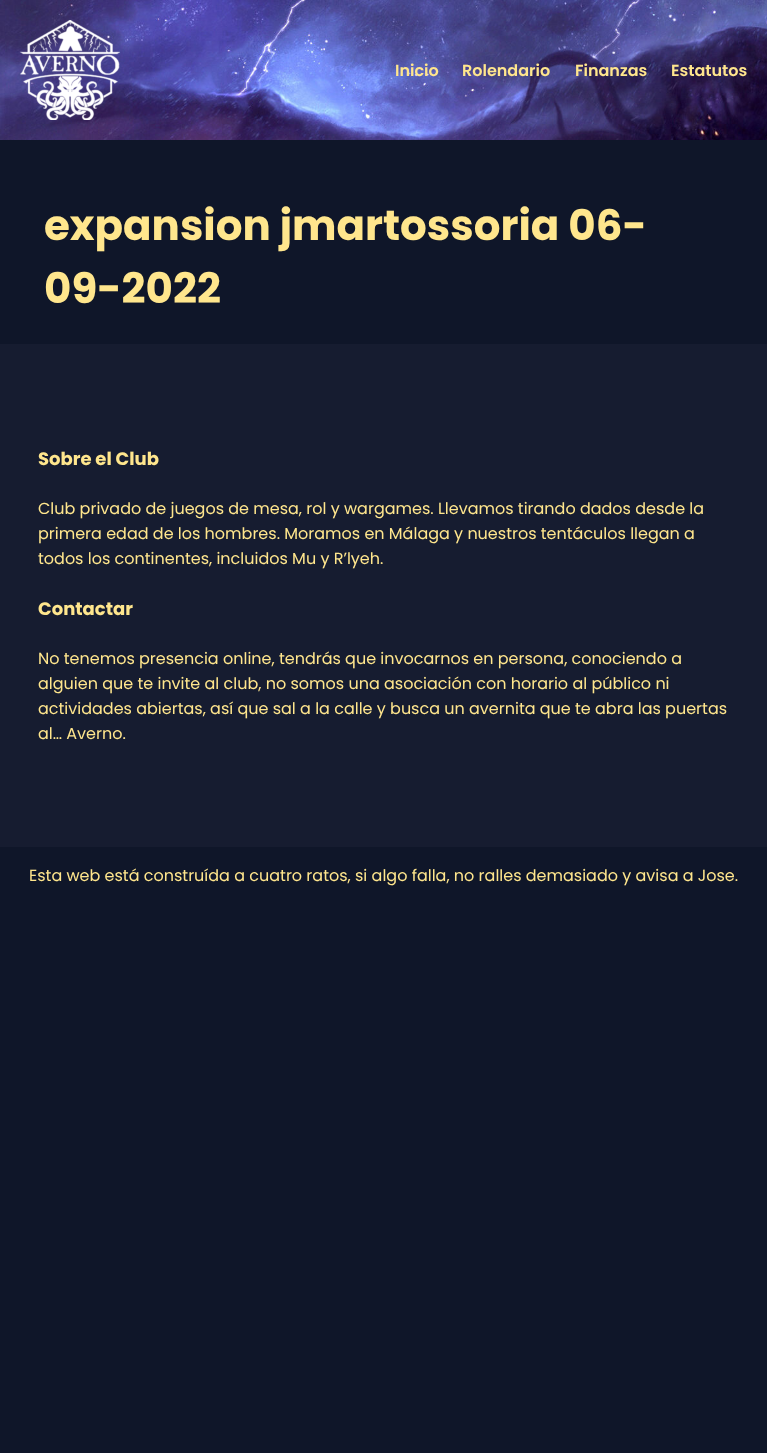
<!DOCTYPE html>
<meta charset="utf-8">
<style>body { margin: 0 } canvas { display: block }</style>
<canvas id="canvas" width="767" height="1453"></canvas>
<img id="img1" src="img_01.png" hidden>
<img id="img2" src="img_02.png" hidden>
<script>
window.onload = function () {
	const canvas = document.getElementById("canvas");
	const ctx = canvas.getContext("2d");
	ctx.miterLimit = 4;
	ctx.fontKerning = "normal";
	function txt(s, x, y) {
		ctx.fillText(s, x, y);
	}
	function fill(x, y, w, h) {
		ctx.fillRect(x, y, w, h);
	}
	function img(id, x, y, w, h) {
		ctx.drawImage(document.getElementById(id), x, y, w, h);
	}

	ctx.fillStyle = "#0F1629";
	fill(0, 0, 767, 1453);
	img("img1", 0, 0, 767, 140);
	img("img2", 20, 20, 100, 100);
	ctx.fillStyle = "#161C30";
	fill(0, 344, 767, 503);
	ctx.font = "600 16px Poppins";
	ctx.fillStyle = "#FFE68D";
	txt("Inicio", 395, 76);
	txt("Rolendario", 462, 76);
	txt("Finanzas", 575, 76);
	txt("Estatutos", 671, 76);
	ctx.font = "bold 42px Poppins";
	txt("expansion jmartossoria 06-", 44, 240);
	txt("09-2022", 44, 303);
	ctx.font = "bold 18px Poppins";
	txt("Sobre el Club", 38, 465);
	ctx.font = "16px Poppins";
	txt("Club privado de juegos de mesa, rol y wargames. Llevamos tirando dados desde la", 38, 514);
	txt("primera edad de los hombres. Moramos en Málaga y nuestros tentáculos llegan a", 38, 539);
	txt("todos los continentes, incluidos Mu y R’lyeh.", 38, 564);
	ctx.font = "bold 18px Poppins";
	txt("Contactar", 38, 615);
	ctx.font = "16px Poppins";
	txt("No tenemos presencia online, tendrás que invocarnos en persona, conociendo a", 38, 664);
	txt("alguien que te invite al club, no somos una asociación con horario al público ni", 38, 689);
	txt("actividades abiertas, así que sal a la calle y busca un avernita que te abra las puertas", 38, 714);
	txt("al… Averno.", 38, 739);
	txt("Esta web está construída a cuatro ratos, si algo falla, no ralles demasiado y avisa a Jose.", 29, 881);
};
</script>
